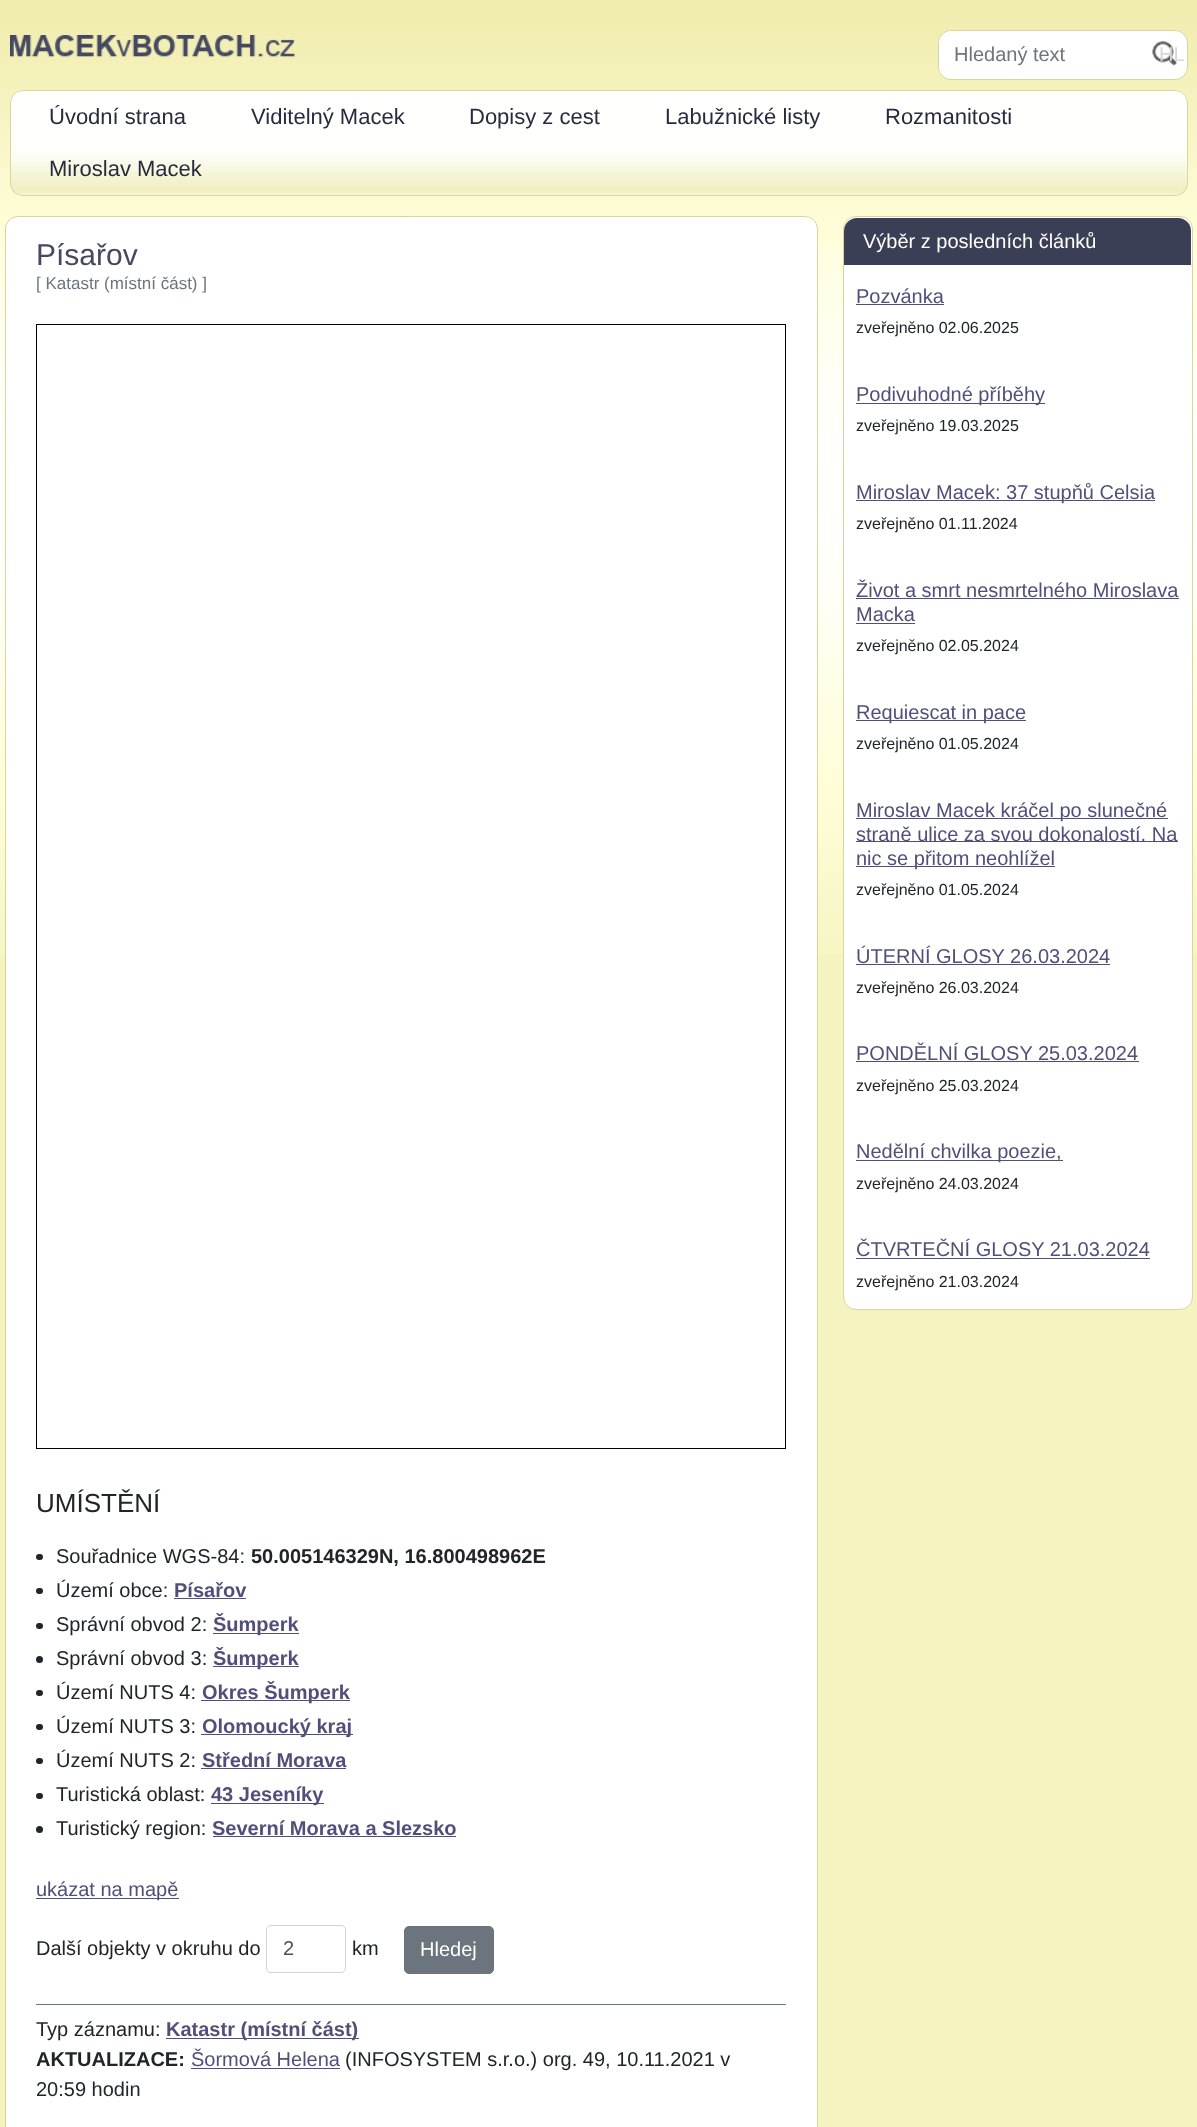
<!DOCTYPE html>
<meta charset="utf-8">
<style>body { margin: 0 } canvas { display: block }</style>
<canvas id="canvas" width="1197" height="2127"></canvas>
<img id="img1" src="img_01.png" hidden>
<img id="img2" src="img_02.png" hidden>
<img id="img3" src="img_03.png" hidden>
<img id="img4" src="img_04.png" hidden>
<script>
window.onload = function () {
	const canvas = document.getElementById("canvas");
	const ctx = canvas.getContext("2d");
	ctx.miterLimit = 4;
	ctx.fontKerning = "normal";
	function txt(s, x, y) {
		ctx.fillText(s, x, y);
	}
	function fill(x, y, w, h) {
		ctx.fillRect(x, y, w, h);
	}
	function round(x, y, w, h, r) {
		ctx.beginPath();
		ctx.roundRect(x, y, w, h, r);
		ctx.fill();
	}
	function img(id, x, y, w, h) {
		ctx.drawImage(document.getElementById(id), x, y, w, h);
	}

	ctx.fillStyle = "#F5F4C0";
	fill(0, 0, 1197, 2127);
	img("img1", 0, 0, 1197, 954);
	img("img2", 10, 35, 285, 22);
	ctx.fillStyle = "#FFFFFF";
	ctx.beginPath();
	ctx.roundRect(938.5, 30.5, 249, 49, 12.5);
	ctx.fill();
	ctx.strokeStyle = "#DAD59F";
	ctx.stroke();
	round(939, 31, 204, 48, 13);
	img("img3", 1152, 31, 26, 35);
	ctx.fillStyle = "#FFFFFD";
	round(10, 90, 1178, 106, 13);
	img("img4", 10, 152, 1178, 43);
	ctx.beginPath();
	ctx.roundRect(10.5, 90.5, 1177, 105, 12.5);
	ctx.stroke();
	ctx.fillStyle = "#FFFFFF";
	ctx.beginPath();
	ctx.roundRect(5.5, 216.5, 812, 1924, 12.5);
	ctx.fill();
	ctx.stroke();
	ctx.strokeStyle = "#000000";
	ctx.strokeRect(36.5, 324.5, 749, 1124);
	ctx.fillStyle = "#212529";
	round(36, 1554, 7, 6, 3);
	round(36, 1588, 7, 6, 3);
	ctx.fillStyle = "#514F7A";
	fill(174, 1598, 72, 1);
	ctx.fillStyle = "#212529";
	round(36, 1623, 7, 6, 3);
	ctx.fillStyle = "#514F7A";
	fill(213, 1633, 86, 1);
	ctx.fillStyle = "#212529";
	ctx.beginPath();
	ctx.arc(39.5, 1659.5, 3.5, 0, Math.PI * 2);
	ctx.fill();
	ctx.fillStyle = "#514F7A";
	fill(213, 1666, 86, 1);
	ctx.fillStyle = "#212529";
	round(36, 1690, 7, 6, 3);
	ctx.fillStyle = "#514F7A";
	fill(201, 1700, 149, 1);
	ctx.fillStyle = "#212529";
	round(36, 1724, 7, 6, 3);
	ctx.fillStyle = "#514F7A";
	fill(201, 1734, 152, 1);
	ctx.fillStyle = "#212529";
	round(36, 1758, 7, 6, 3);
	ctx.fillStyle = "#514F7A";
	fill(201, 1768, 145, 1);
	ctx.fillStyle = "#212529";
	round(36, 1793, 7, 6, 3);
	ctx.fillStyle = "#514F7A";
	fill(211, 1803, 113, 1);
	ctx.fillStyle = "#212529";
	ctx.beginPath();
	ctx.arc(39.5, 1829.5, 3.5, 0, Math.PI * 2);
	ctx.fill();
	ctx.fillStyle = "#514F7A";
	fill(213, 1836, 243, 1);
	fill(36, 1898, 143, 1);
	ctx.beginPath();
	ctx.roundRect(266.5, 1925.5, 79, 47, 4.5);
	ctx.strokeStyle = "#CED4DA";
	ctx.stroke();
	ctx.fillStyle = "#6C757D";
	ctx.beginPath();
	ctx.roundRect(404.5, 1926.5, 89, 47, 4.5);
	ctx.fill();
	ctx.strokeStyle = "#6C757D";
	ctx.stroke();
	fill(36, 2004, 750, 1);
	ctx.fillStyle = "#514F7A";
	fill(166, 2038, 193, 1);
	fill(191, 2068, 149, 1);
	ctx.fillStyle = "#FFFFFF";
	ctx.beginPath();
	ctx.roundRect(843.5, 216.5, 349, 1093, 12.5);
	ctx.fill();
	ctx.strokeStyle = "#DAD59F";
	ctx.stroke();
	ctx.fillStyle = "#3B3F56";
	ctx.beginPath();
	ctx.roundRect(844, 218, 347, 47, [13, 13, 0, 0]);
	ctx.fill();
	ctx.fillStyle = "#514F7A";
	fill(856, 304, 88, 1);
	fill(856, 403, 189, 1);
	fill(856, 500, 299, 1);
	fill(856, 598, 323, 1);
	fill(856, 623, 59, 1);
	fill(856, 720, 170, 1);
	fill(856, 818, 312, 1);
	fill(856, 841, 322, 1);
	fill(856, 866, 199, 1);
	fill(856, 964, 254, 1);
	fill(856, 1061, 283, 1);
	fill(856, 1160, 207, 1);
	fill(856, 1258, 294, 1);
	ctx.font = "20px Liberation Sans";
	ctx.fillStyle = "#6C757D";
	txt("Hledaný text", 954, 61);
	ctx.fillStyle = "#D7D7D7";
	txt("HL", 1159, 61);
	ctx.font = "22px Liberation Sans";
	ctx.fillStyle = "#272B3F";
	txt("Úvodní strana", 49, 124);
	txt("Viditelný Macek", 251, 124);
	txt("Dopisy z cest", 469, 124);
	txt("Labužnické listy", 665, 124);
	txt("Rozmanitosti", 885, 124);
	txt("Miroslav Macek", 49, 176);
	ctx.font = "30px Liberation Sans";
	ctx.fillStyle = "#444860";
	txt("Písařov", 36, 265);
	ctx.font = "17px Liberation Sans";
	ctx.fillStyle = "#6C757D";
	txt("[ Katastr (místní část) ]", 36, 289);
	ctx.font = "26px Liberation Sans";
	ctx.fillStyle = "#212529";
	txt("UMÍSTĚNÍ", 36, 1512);
	ctx.font = "20px Liberation Sans";
	txt("Souřadnice WGS-84:", 56, 1563);
	ctx.font = "bold 20px Liberation Sans";
	txt("50.005146329N, 16.800498962E", 251, 1563);
	ctx.font = "20px Liberation Sans";
	txt("Území obce:", 56, 1597);
	ctx.font = "bold 20px Liberation Sans";
	ctx.fillStyle = "#514F7A";
	txt("Písařov", 174, 1597);
	ctx.font = "20px Liberation Sans";
	ctx.fillStyle = "#212529";
	txt("Správní obvod 2:", 56, 1631);
	ctx.font = "bold 20px Liberation Sans";
	ctx.fillStyle = "#514F7A";
	txt("Šumperk", 213, 1631);
	ctx.font = "20px Liberation Sans";
	ctx.fillStyle = "#212529";
	txt("Správní obvod 3:", 56, 1665);
	ctx.font = "bold 20px Liberation Sans";
	ctx.fillStyle = "#514F7A";
	txt("Šumperk", 213, 1665);
	ctx.font = "20px Liberation Sans";
	ctx.fillStyle = "#212529";
	txt("Území NUTS 4:", 56, 1699);
	ctx.font = "bold 20px Liberation Sans";
	ctx.fillStyle = "#514F7A";
	txt("Okres Šumperk", 202, 1699);
	ctx.font = "20px Liberation Sans";
	ctx.fillStyle = "#212529";
	txt("Území NUTS 3:", 56, 1733);
	ctx.font = "bold 20px Liberation Sans";
	ctx.fillStyle = "#514F7A";
	txt("Olomoucký kraj", 202, 1733);
	ctx.font = "20px Liberation Sans";
	ctx.fillStyle = "#212529";
	txt("Území NUTS 2:", 56, 1767);
	ctx.font = "bold 20px Liberation Sans";
	ctx.fillStyle = "#514F7A";
	txt("Střední Morava", 202, 1767);
	ctx.font = "20px Liberation Sans";
	ctx.fillStyle = "#212529";
	txt("Turistická oblast:", 56, 1801);
	ctx.font = "bold 20px Liberation Sans";
	ctx.fillStyle = "#514F7A";
	txt("43 Jeseníky", 211, 1801);
	ctx.font = "20px Liberation Sans";
	ctx.fillStyle = "#212529";
	txt("Turistický region:", 56, 1835);
	ctx.font = "bold 20px Liberation Sans";
	ctx.fillStyle = "#514F7A";
	txt("Severní Morava a Slezsko", 212, 1835);
	ctx.font = "20px Liberation Sans";
	txt("ukázat na mapě", 36, 1896);
	ctx.fillStyle = "#212529";
	txt("Další objekty v okruhu do", 36, 1955);
	ctx.fillStyle = "#495057";
	txt("2", 283, 1955);
	ctx.fillStyle = "#212529";
	txt("km", 352, 1955);
	ctx.fillStyle = "#FFFFFF";
	txt("Hledej", 420, 1956);
	ctx.fillStyle = "#212529";
	txt("Typ záznamu:", 36, 2036);
	ctx.font = "bold 20px Liberation Sans";
	ctx.fillStyle = "#514F7A";
	txt("Katastr (místní část)", 166, 2036);
	ctx.fillStyle = "#212529";
	txt("AKTUALIZACE:", 36, 2066);
	ctx.font = "20px Liberation Sans";
	ctx.fillStyle = "#514F7A";
	txt("Šormová Helena", 191, 2066);
	ctx.fillStyle = "#212529";
	txt("(INFOSYSTEM s.r.o.) org. 49, 10.11.2021 v", 345, 2066);
	txt("20:59 hodin", 36, 2096);
	ctx.fillStyle = "#FFFFFF";
	txt("Výběr z posledních článků", 863, 248);
	ctx.fillStyle = "#514F7A";
	txt("Pozvánka", 856, 303);
	ctx.font = "16px Liberation Sans";
	ctx.fillStyle = "#212529";
	txt("zveřejněno 02.06.2025", 856, 333);
	ctx.font = "20px Liberation Sans";
	ctx.fillStyle = "#514F7A";
	txt("Podivuhodné příběhy", 856, 401);
	ctx.font = "16px Liberation Sans";
	ctx.fillStyle = "#212529";
	txt("zveřejněno 19.03.2025", 856, 431);
	ctx.font = "20px Liberation Sans";
	ctx.fillStyle = "#514F7A";
	txt("Miroslav Macek: 37 stupňů Celsia", 856, 499);
	ctx.font = "16px Liberation Sans";
	ctx.fillStyle = "#212529";
	txt("zveřejněno 01.11.2024", 856, 529);
	ctx.font = "20px Liberation Sans";
	ctx.fillStyle = "#514F7A";
	txt("Život a smrt nesmrtelného Miroslava", 856, 597);
	txt("Macka", 856, 621);
	ctx.font = "16px Liberation Sans";
	ctx.fillStyle = "#212529";
	txt("zveřejněno 02.05.2024", 856, 651);
	ctx.font = "20px Liberation Sans";
	ctx.fillStyle = "#514F7A";
	txt("Requiescat in pace", 856, 719);
	ctx.font = "16px Liberation Sans";
	ctx.fillStyle = "#212529";
	txt("zveřejněno 01.05.2024", 856, 749);
	ctx.font = "20px Liberation Sans";
	ctx.fillStyle = "#514F7A";
	txt("Miroslav Macek kráčel po slunečné", 856, 817);
	txt("straně ulice za svou dokonalostí. Na", 856, 841);
	txt("nic se přitom neohlížel", 856, 865);
	ctx.font = "16px Liberation Sans";
	ctx.fillStyle = "#212529";
	txt("zveřejněno 01.05.2024", 856, 895);
	ctx.font = "20px Liberation Sans";
	ctx.fillStyle = "#514F7A";
	txt("ÚTERNÍ GLOSY 26.03.2024", 856, 963);
	ctx.font = "16px Liberation Sans";
	ctx.fillStyle = "#212529";
	txt("zveřejněno 26.03.2024", 856, 993);
	ctx.font = "20px Liberation Sans";
	ctx.fillStyle = "#514F7A";
	txt("PONDĚLNÍ GLOSY 25.03.2024", 856, 1060);
	ctx.font = "16px Liberation Sans";
	ctx.fillStyle = "#212529";
	txt("zveřejněno 25.03.2024", 856, 1091);
	ctx.font = "20px Liberation Sans";
	ctx.fillStyle = "#514F7A";
	txt("Nedělní chvilka poezie,", 856, 1158);
	ctx.font = "16px Liberation Sans";
	ctx.fillStyle = "#212529";
	txt("zveřejněno 24.03.2024", 856, 1189);
	ctx.font = "20px Liberation Sans";
	ctx.fillStyle = "#514F7A";
	txt("ČTVRTEČNÍ GLOSY 21.03.2024", 856, 1256);
	ctx.font = "16px Liberation Sans";
	ctx.fillStyle = "#212529";
	txt("zveřejněno 21.03.2024", 856, 1287);
};
</script>
